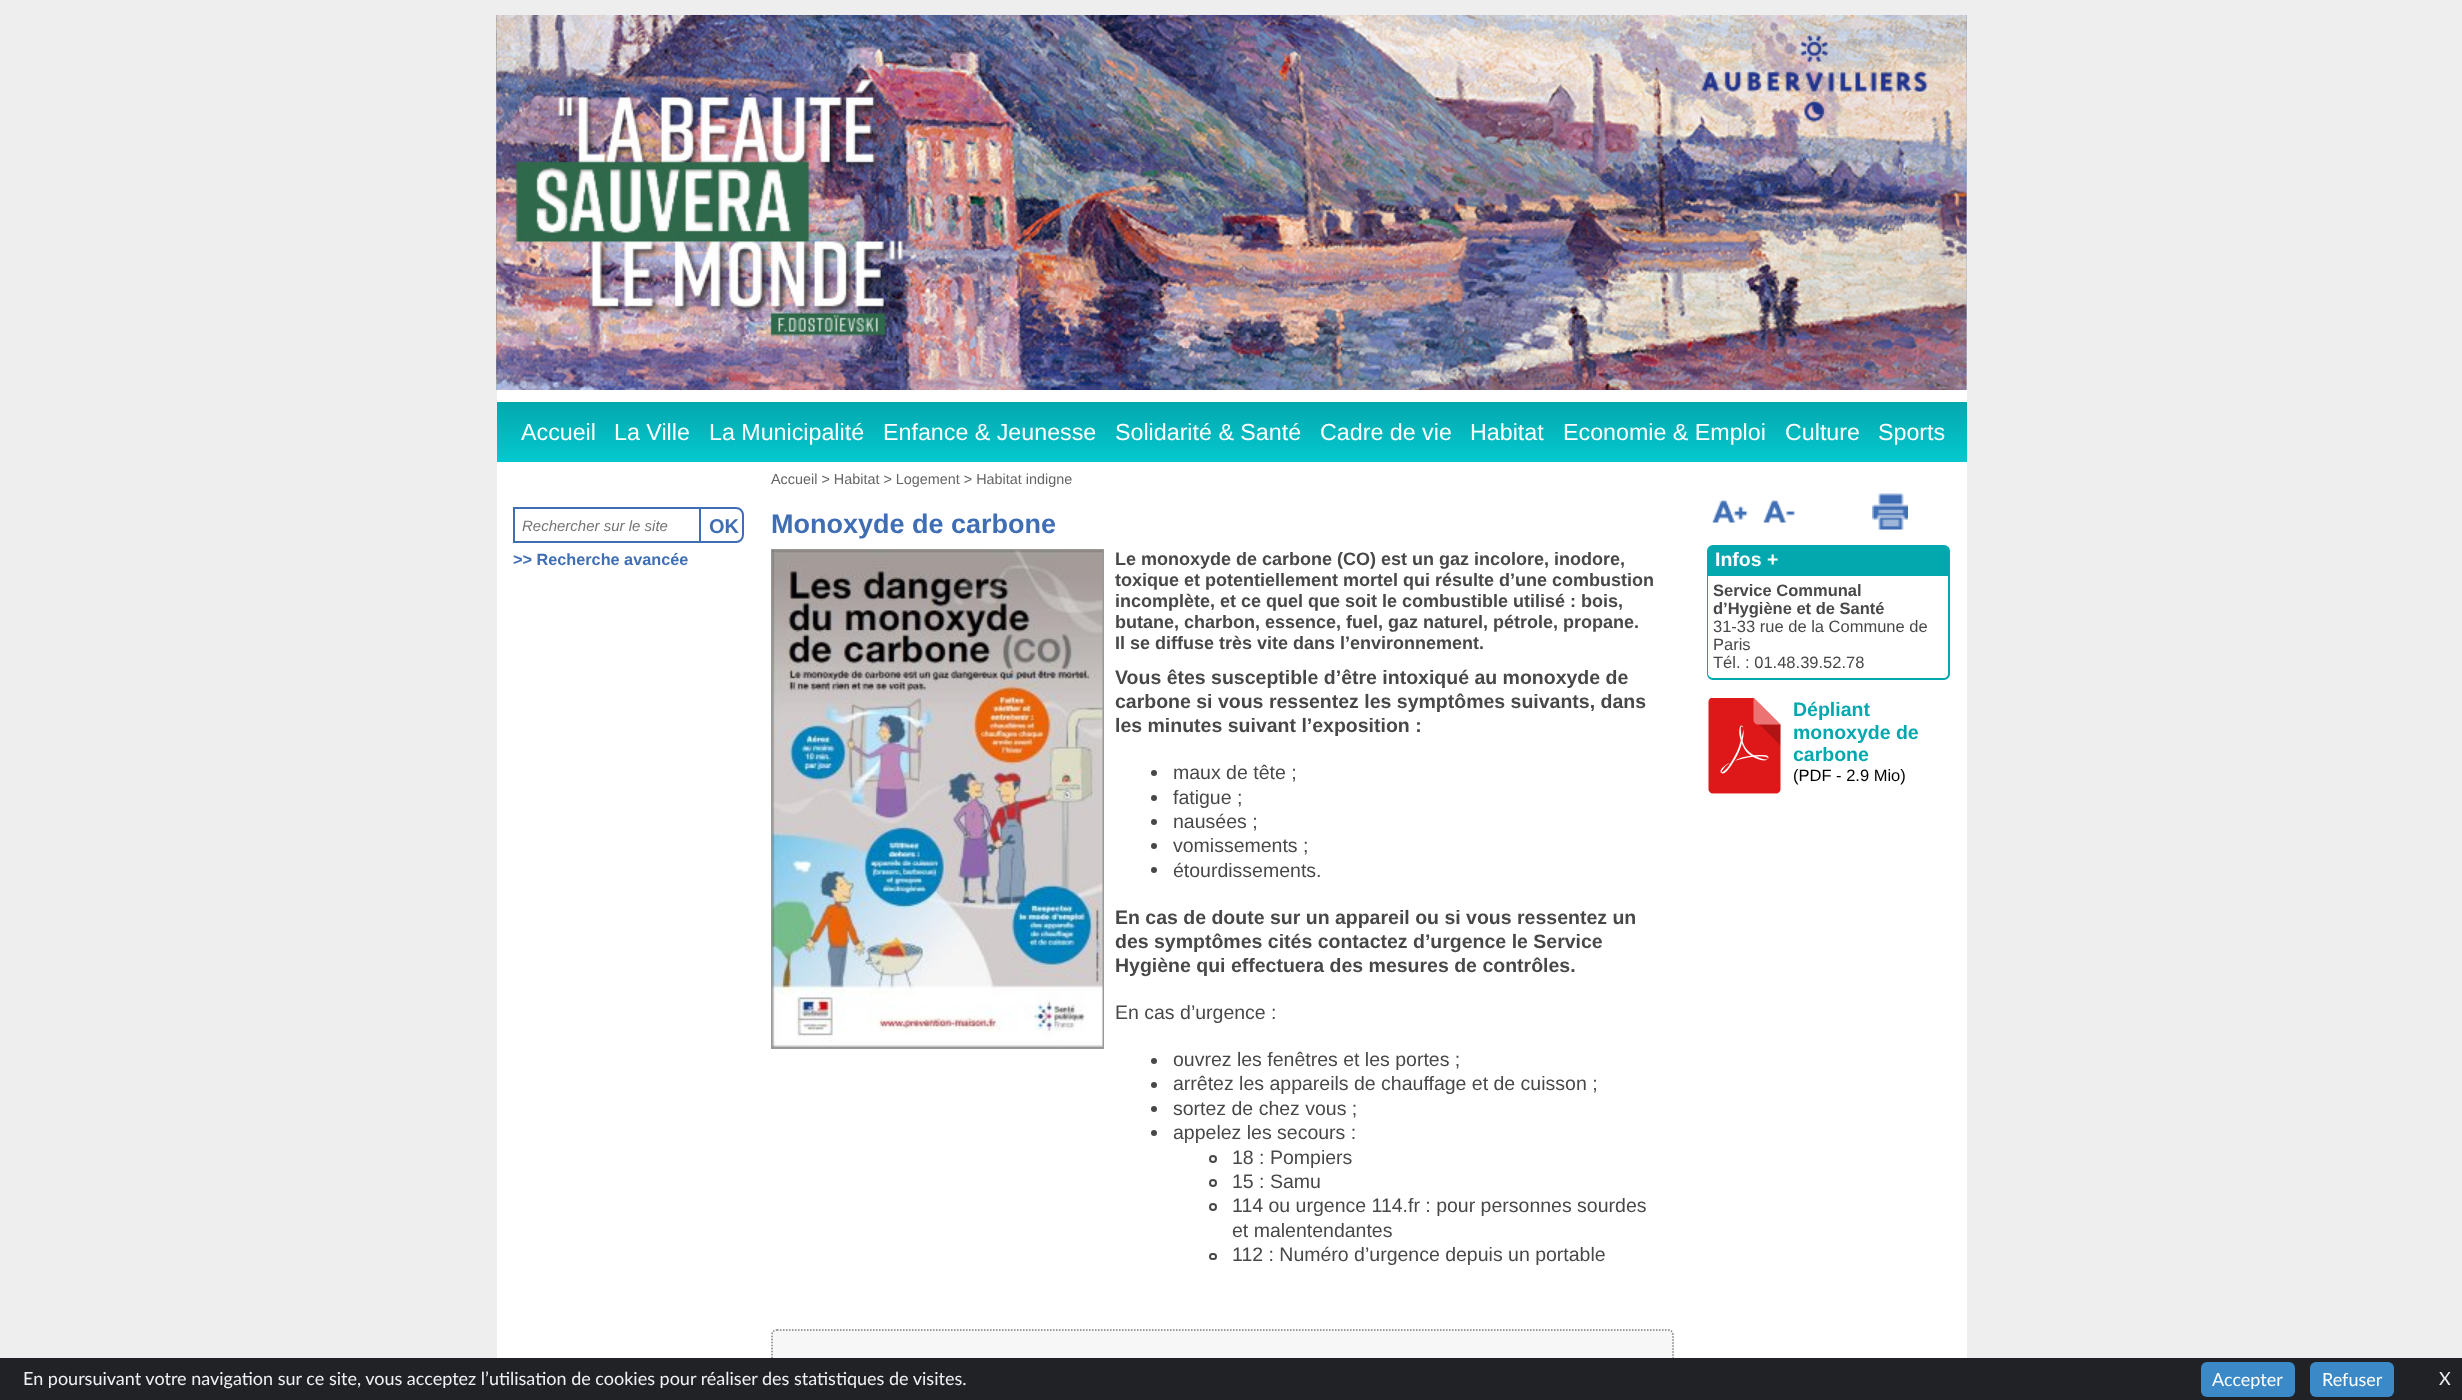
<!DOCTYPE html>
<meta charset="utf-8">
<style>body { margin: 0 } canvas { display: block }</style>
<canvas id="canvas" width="2462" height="1400"></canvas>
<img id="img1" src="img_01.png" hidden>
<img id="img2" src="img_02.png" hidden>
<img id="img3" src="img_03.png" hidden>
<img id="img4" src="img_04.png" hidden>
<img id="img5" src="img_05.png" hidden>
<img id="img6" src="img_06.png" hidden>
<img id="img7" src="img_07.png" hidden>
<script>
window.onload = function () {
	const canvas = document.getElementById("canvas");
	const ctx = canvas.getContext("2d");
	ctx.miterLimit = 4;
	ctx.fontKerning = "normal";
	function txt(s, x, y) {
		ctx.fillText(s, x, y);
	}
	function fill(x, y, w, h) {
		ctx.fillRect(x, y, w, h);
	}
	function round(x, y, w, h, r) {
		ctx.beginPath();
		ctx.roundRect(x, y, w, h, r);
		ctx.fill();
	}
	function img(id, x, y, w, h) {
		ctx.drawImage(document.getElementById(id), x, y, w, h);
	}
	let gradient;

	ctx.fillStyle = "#EEEEEE";
	fill(0, 0, 2462, 1400);
	ctx.fillStyle = "#FFFFFF";
	fill(497, 15, 1470, 1343);
	img("img1", 496, 15, 1471, 375);
	img("img2", 496, 15, 1471, 375);
	gradient = ctx.createLinearGradient(1232, 402, 1232, 462);
	gradient.addColorStop(0, "#03A8AE");
	gradient.addColorStop(1, "#05C8CF");
	ctx.fillStyle = gradient;
	fill(497, 402, 1470, 60);
	ctx.strokeStyle = "#3F6EB4";
	ctx.lineWidth = 2;
	ctx.strokeRect(514, 508, 189, 34);
	ctx.fillStyle = "#FFFFFF";
	ctx.beginPath();
	ctx.roundRect(700, 508, 43, 34, [0, 7, 7, 0]);
	ctx.fill();
	ctx.stroke();
	ctx.strokeStyle = "#989898";
	ctx.strokeRect(772, 550, 331, 498);
	img("img3", 772, 550, 331, 497);
	ctx.fillStyle = "#484848";
	ctx.beginPath();
	ctx.arc(1154, 773, 3, 0, Math.PI * 2);
	ctx.fill();
	ctx.beginPath();
	ctx.arc(1154, 798, 3, 0, Math.PI * 2);
	ctx.fill();
	ctx.beginPath();
	ctx.arc(1154, 822, 3, 0, Math.PI * 2);
	ctx.fill();
	ctx.beginPath();
	ctx.arc(1154, 846, 3, 0, Math.PI * 2);
	ctx.fill();
	ctx.beginPath();
	ctx.arc(1154, 870, 3, 0, Math.PI * 2);
	ctx.fill();
	ctx.beginPath();
	ctx.arc(1154, 1061, 3, 0, Math.PI * 2);
	ctx.fill();
	ctx.beginPath();
	ctx.arc(1154, 1085, 3, 0, Math.PI * 2);
	ctx.fill();
	ctx.beginPath();
	ctx.arc(1154, 1109, 3, 0, Math.PI * 2);
	ctx.fill();
	ctx.beginPath();
	ctx.arc(1154, 1133, 3, 0, Math.PI * 2);
	ctx.fill();
	ctx.beginPath();
	ctx.arc(1213, 1159, 3, 0, Math.PI * 2);
	ctx.strokeStyle = "#484848";
	ctx.stroke();
	ctx.beginPath();
	ctx.arc(1213, 1183, 3, 0, Math.PI * 2);
	ctx.stroke();
	ctx.beginPath();
	ctx.arc(1213, 1207, 3, 0, Math.PI * 2);
	ctx.stroke();
	ctx.beginPath();
	ctx.roundRect(1210, 1254, 6, 5, 2.5);
	ctx.stroke();
	ctx.fillStyle = "#F7F7F7";
	round(771, 1329, 903, 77, 6);
	ctx.beginPath();
	ctx.moveTo(777, 1330);
	ctx.lineTo(1668, 1330);
	ctx.bezierCurveTo(1671, 1330, 1673, 1332, 1673, 1335);
	ctx.lineTo(1673, 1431);
	ctx.bezierCurveTo(1673, 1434, 1671, 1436, 1668, 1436);
	ctx.lineTo(777, 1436);
	ctx.bezierCurveTo(774, 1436, 772, 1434, 772, 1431);
	ctx.lineTo(772, 1335);
	ctx.bezierCurveTo(772, 1332, 774, 1330, 777, 1330);
	ctx.closePath();
	ctx.strokeStyle = "#808080";
	ctx.lineWidth = 1.5;
	ctx.setLineDash([1.5, 1.5]);
	ctx.stroke();
	img("img4", 1712, 500, 36, 23);
	img("img5", 1763, 500, 32, 23);
	img("img6", 1872, 493, 36, 37);
	ctx.fillStyle = "#03A8AE";
	ctx.beginPath();
	ctx.roundRect(1707, 545, 243, 31, [6, 6, 0, 0]);
	ctx.fill();
	ctx.beginPath();
	ctx.moveTo(1707, 572);
	ctx.lineTo(1950, 572);
	ctx.lineTo(1950, 674);
	ctx.bezierCurveTo(1950, 677, 1947, 680, 1944, 680);
	ctx.lineTo(1713, 680);
	ctx.bezierCurveTo(1710, 680, 1707, 677, 1707, 674);
	ctx.closePath();
	ctx.moveTo(1708, 572);
	ctx.lineTo(1948, 572);
	ctx.lineTo(1948, 674);
	ctx.bezierCurveTo(1948, 676, 1946, 678, 1944, 678);
	ctx.lineTo(1713, 678);
	ctx.bezierCurveTo(1711, 678, 1708, 676, 1708, 674);
	ctx.closePath();
	ctx.fill("evenodd");
	img("img7", 1708, 698, 73, 96);
	ctx.fillStyle = "#202226";
	fill(0, 1358, 2462, 42);
	ctx.fillStyle = "#3B89C7";
	round(2201, 1362, 94, 35, 6);
	round(2310, 1362, 84, 35, 6);
	ctx.font = "23.25px Liberation Sans";
	ctx.fillStyle = "#FFFFFF";
	txt("Accueil", 521, 440);
	txt("La Ville", 614, 440);
	txt("La Municipalité", 709, 440);
	txt("Enfance & Jeunesse", 883, 440);
	txt("Solidarité & Santé", 1115, 440);
	txt("Cadre de vie", 1320, 440);
	txt("Habitat", 1470, 440);
	txt("Economie & Emploi", 1563, 440);
	txt("Culture", 1785, 440);
	txt("Sports", 1878, 440);
	ctx.font = "italic 15px Liberation Sans";
	ctx.fillStyle = "#757575";
	txt("Rechercher sur le site", 522, 531);
	ctx.font = "bold 20px Liberation Sans";
	ctx.fillStyle = "#3F6EB4";
	txt("OK", 709, 533);
	ctx.font = "bold 16.25px Liberation Sans";
	txt(">> Recherche avancée", 513, 565);
	ctx.font = "14.4px Liberation Sans";
	ctx.fillStyle = "#656565";
	txt("Accueil > Habitat > Logement > Habitat indigne", 771, 484);
	ctx.font = "bold 27px Liberation Sans";
	ctx.fillStyle = "#3F6EB4";
	txt("Monoxyde de carbone", 771, 533);
	ctx.font = "bold 18px Liberation Sans";
	ctx.fillStyle = "#484848";
	txt("Le monoxyde de carbone (CO) est un gaz incolore, inodore,", 1115, 565);
	txt("toxique et potentiellement mortel qui résulte d’une combustion", 1115, 586);
	txt("incomplète, et ce quel que soit le combustible utilisé : bois,", 1115, 607);
	txt("butane, charbon, essence, fuel, gaz naturel, pétrole, propane.", 1115, 628);
	txt("Il se diffuse très vite dans l’environnement.", 1115, 649);
	ctx.font = "bold 19.5px Liberation Sans";
	txt("Vous êtes susceptible d’être intoxiqué au monoxyde de", 1115, 684);
	txt("carbone si vous ressentez les symptômes suivants, dans", 1115, 708);
	txt("les minutes suivant l’exposition :", 1115, 732);
	ctx.font = "19.5px Liberation Sans";
	txt("maux de tête ;", 1173, 779);
	txt("fatigue ;", 1173, 804);
	txt("nausées ;", 1173, 828);
	txt("vomissements ;", 1173, 852);
	txt("étourdissements.", 1173, 877);
	ctx.font = "bold 19.5px Liberation Sans";
	txt("En cas de doute sur un appareil ou si vous ressentez un", 1115, 924);
	txt("des symptômes cités contactez d’urgence le Service", 1115, 948);
	txt("Hygiène qui effectuera des mesures de contrôles.", 1115, 972);
	ctx.font = "19.5px Liberation Sans";
	txt("En cas d’urgence :", 1115, 1019);
	txt("ouvrez les fenêtres et les portes ;", 1173, 1066);
	txt("arrêtez les appareils de chauffage et de cuisson ;", 1173, 1090);
	txt("sortez de chez vous ;", 1173, 1115);
	txt("appelez les secours :", 1173, 1139);
	txt("18 : Pompiers", 1232, 1164);
	txt("15 : Samu", 1232, 1188);
	txt("114 ou urgence 114.fr : pour personnes sourdes", 1232, 1212);
	txt("et malentendantes", 1232, 1237);
	txt("112 : Numéro d’urgence depuis un portable", 1232, 1261);
	ctx.font = "bold 19.5px Liberation Sans";
	ctx.fillStyle = "#FFFFFF";
	txt("Infos +", 1715, 566);
	ctx.font = "bold 16.5px Liberation Sans";
	ctx.fillStyle = "#484848";
	txt("Service Communal", 1713, 596);
	txt("d’Hygiène et de Santé", 1713, 614);
	ctx.font = "16.5px Liberation Sans";
	txt("31-33 rue de la Commune de", 1713, 632);
	txt("Paris", 1713, 650);
	txt("Tél. : 01.48.39.52.78", 1713, 668);
	ctx.font = "bold 19.5px Liberation Sans";
	ctx.fillStyle = "#03A8AE";
	txt("Dépliant", 1793, 716);
	txt("monoxyde de", 1793, 739);
	txt("carbone", 1793, 761);
	ctx.font = "16.5px Liberation Sans";
	ctx.fillStyle = "#000000";
	txt("(PDF - 2.9 Mio)", 1793, 781);
	ctx.font = "18px Lato";
	ctx.fillStyle = "#F1F1F3";
	txt("En poursuivant votre navigation sur ce site, vous acceptez l’utilisation de cookies pour réaliser des statistiques de visites.", 23, 1385);
	ctx.fillStyle = "#FFFFFF";
	txt("Accepter", 2212, 1386);
	txt("Refuser", 2322, 1386);
	ctx.fillStyle = "#F1F1F3";
	txt("X", 2439, 1385);
};
</script>
